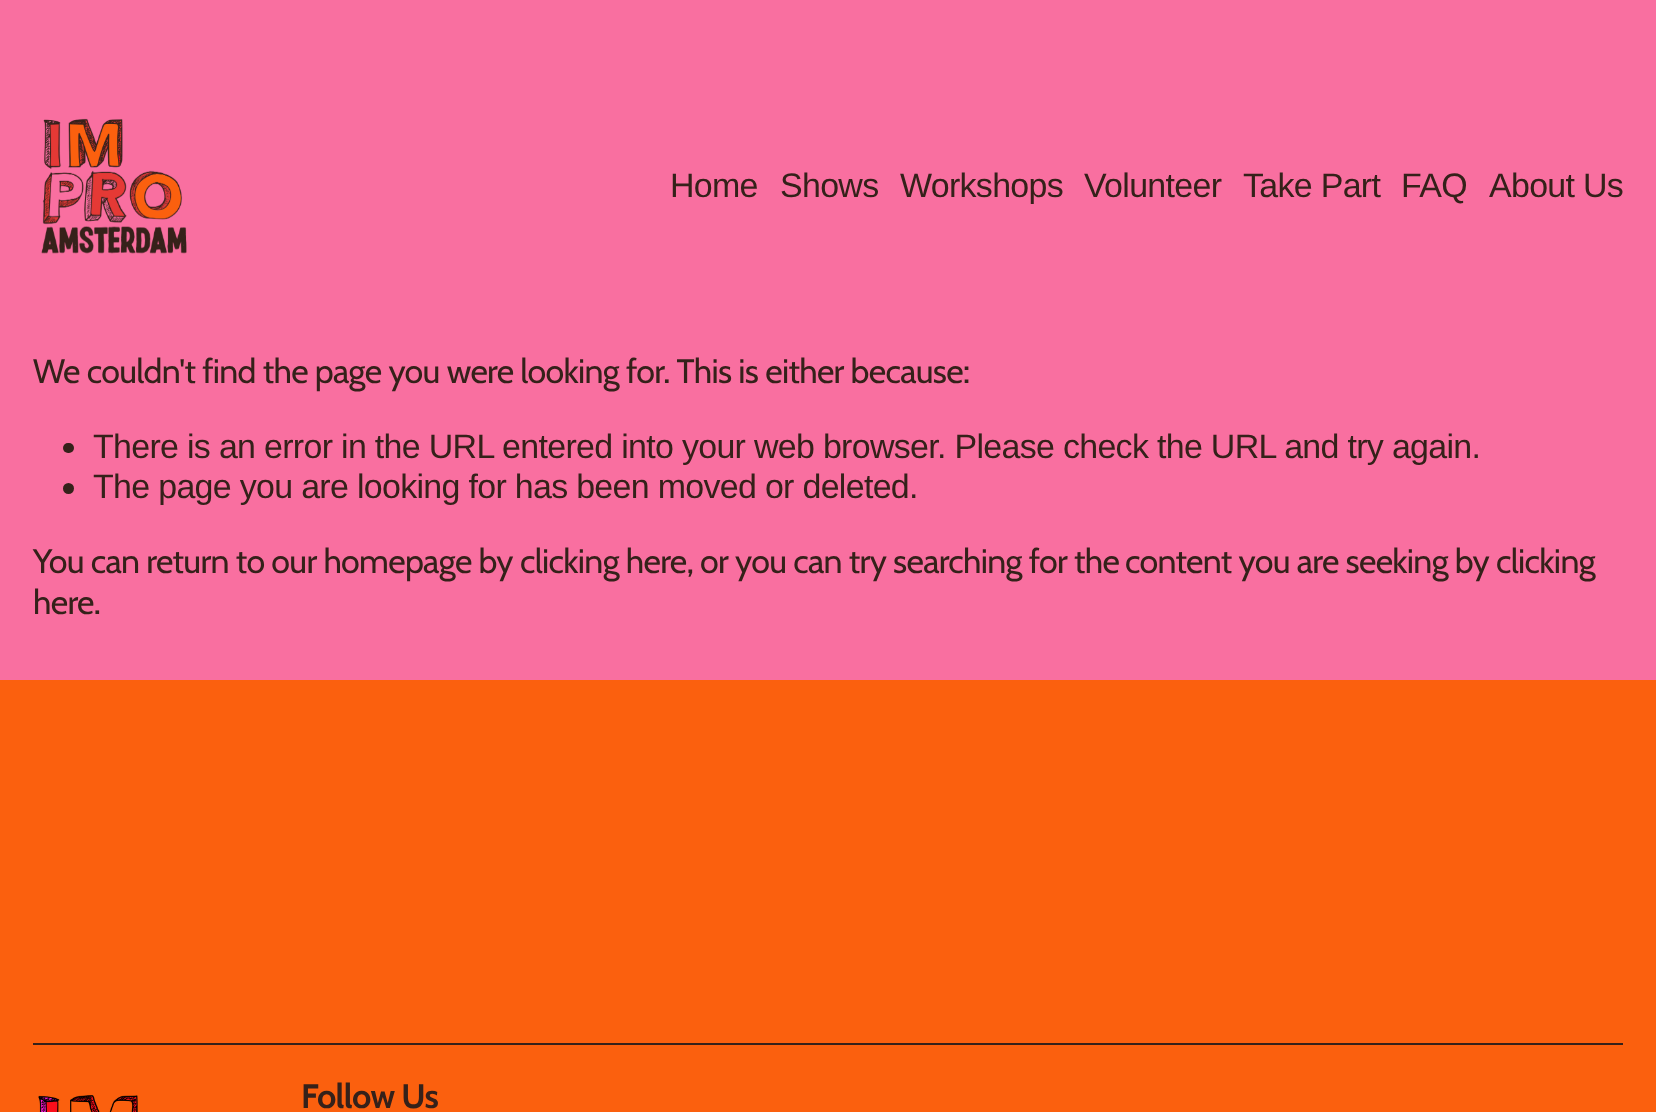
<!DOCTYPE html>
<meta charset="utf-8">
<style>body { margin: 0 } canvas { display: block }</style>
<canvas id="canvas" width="1656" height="1112"></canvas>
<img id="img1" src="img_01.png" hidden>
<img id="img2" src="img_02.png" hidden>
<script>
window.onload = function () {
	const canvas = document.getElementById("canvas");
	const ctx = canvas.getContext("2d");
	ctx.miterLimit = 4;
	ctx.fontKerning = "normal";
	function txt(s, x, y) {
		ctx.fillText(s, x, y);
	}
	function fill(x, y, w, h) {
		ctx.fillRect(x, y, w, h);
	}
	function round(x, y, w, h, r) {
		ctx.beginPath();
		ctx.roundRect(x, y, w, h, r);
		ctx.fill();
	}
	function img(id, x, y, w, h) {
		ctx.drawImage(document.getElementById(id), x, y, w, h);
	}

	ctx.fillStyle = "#F96FA0";
	fill(0, 0, 1656, 1112);
	img("img1", 41, 118, 146, 136);
	ctx.fillStyle = "#35211A";
	round(63, 443, 11, 10, 5);
	ctx.beginPath();
	ctx.arc(68.5, 488.5, 5.5, 0, Math.PI * 2);
	ctx.fill();
	ctx.fillStyle = "#FB600E";
	fill(0, 680, 1656, 432);
	ctx.fillStyle = "#35211A";
	fill(33, 1043, 1590, 2);
	img("img2", 38, 1095, 100, 17);
	ctx.letterSpacing = "-0.68px";
	ctx.font = "33.95px Liberation Sans";
	txt("Home", 670, 197);
	txt("Shows", 780, 197);
	txt("Workshops", 900, 197);
	txt("Volunteer", 1084, 197);
	txt("Take Part", 1243, 197);
	txt("FAQ", 1401, 197);
	txt("About Us", 1489, 197);
	ctx.font = "33.95px Cabin";
	txt("We couldn't find the page you were looking for. This is either because:", 33, 383);
	ctx.font = "33.95px Liberation Sans";
	txt("There is an error in the URL entered into your web browser. Please check the URL and try again.", 93, 458);
	txt("The page you are looking for has been moved or deleted.", 93, 498);
	ctx.font = "33.95px Cabin";
	txt("You can return to our homepage by", 33, 573);
	txt("clicking here, or you can try searching for the", 520, 573);
	txt("content you are seeking by clicking", 1125, 573);
	txt("here.", 33, 614);
	ctx.font = "bold 33.95px Cabin";
	txt("Follow Us", 301, 1108);
};
</script>
